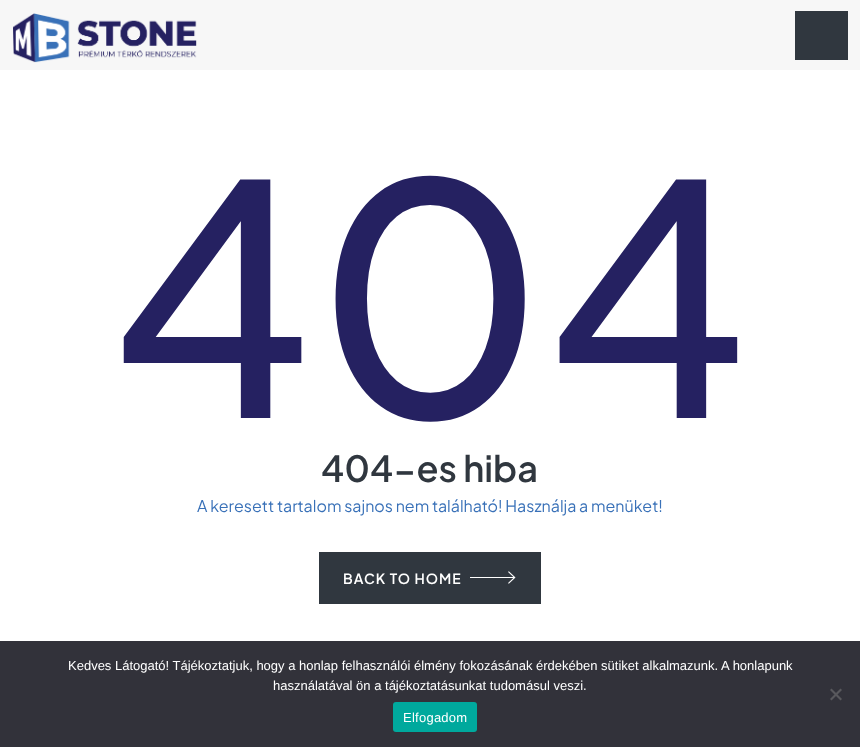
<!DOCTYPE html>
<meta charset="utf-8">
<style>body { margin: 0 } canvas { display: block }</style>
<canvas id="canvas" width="860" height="747"></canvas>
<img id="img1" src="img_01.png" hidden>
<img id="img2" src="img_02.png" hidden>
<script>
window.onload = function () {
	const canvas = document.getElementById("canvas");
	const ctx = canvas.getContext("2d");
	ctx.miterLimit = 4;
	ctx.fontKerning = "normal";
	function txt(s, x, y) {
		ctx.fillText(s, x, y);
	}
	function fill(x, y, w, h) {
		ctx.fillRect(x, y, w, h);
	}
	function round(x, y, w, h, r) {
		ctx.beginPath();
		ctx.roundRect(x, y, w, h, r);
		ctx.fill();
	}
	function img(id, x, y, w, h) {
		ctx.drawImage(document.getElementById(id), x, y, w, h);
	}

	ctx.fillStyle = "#FFFFFF";
	fill(0, 0, 860, 747);
	ctx.fillStyle = "#F7F7F7";
	fill(0, 0, 860, 70);
	img("img1", 13, 13, 184, 50);
	ctx.fillStyle = "#30373F";
	fill(795, 11, 53, 49);
	fill(319, 552, 222, 52);
	ctx.fillStyle = "#FFFFFF";
	fill(470, 577, 44, 1);
	img("img2", 508, 571, 8, 13);
	ctx.fillStyle = "#32323A";
	fill(0, 641, 860, 106);
	ctx.fillStyle = "#59595D";
	ctx.beginPath();
	ctx.moveTo(840.5, 688.5);
	ctx.lineTo(842, 690);
	ctx.lineTo(831.5, 700.5);
	ctx.lineTo(830, 699);
	ctx.closePath();
	ctx.fill();
	ctx.beginPath();
	ctx.moveTo(830, 690);
	ctx.lineTo(831.5, 688.5);
	ctx.lineTo(842, 699);
	ctx.lineTo(840.5, 700.5);
	ctx.closePath();
	ctx.fill();
	ctx.fillStyle = "#00A99D";
	round(393, 702, 84, 30, 3);
	ctx.font = "500 320px Plus Jakarta Sans";
	ctx.fillStyle = "#252161";
	txt("404", 110, 418);
	ctx.font = "600 36px Plus Jakarta Sans";
	ctx.fillStyle = "#30373F";
	txt("404-es hiba", 321, 482);
	ctx.font = "16px Plus Jakarta Sans";
	ctx.fillStyle = "#3971B8";
	txt("A keresett tartalom sajnos nem található! Használja a menüket!", 197, 512);
	ctx.letterSpacing = "1px";
	ctx.font = "600 14px Plus Jakarta Sans";
	ctx.fillStyle = "#FFFFFF";
	txt("BACK TO HOME", 343, 584);
	ctx.letterSpacing = "0px";
	ctx.font = "13px Liberation Sans";
	txt("Kedves Látogató! Tájékoztatjuk, hogy a honlap felhasználói élmény fokozásának érdekében sütiket alkalmazunk. A honlapunk", 68, 670);
	txt("használatával ön a tájékoztatásunkat tudomásul veszi.", 273, 690);
	ctx.letterSpacing = "0.25px";
	txt("Elfogadom", 403, 722);
};
</script>
